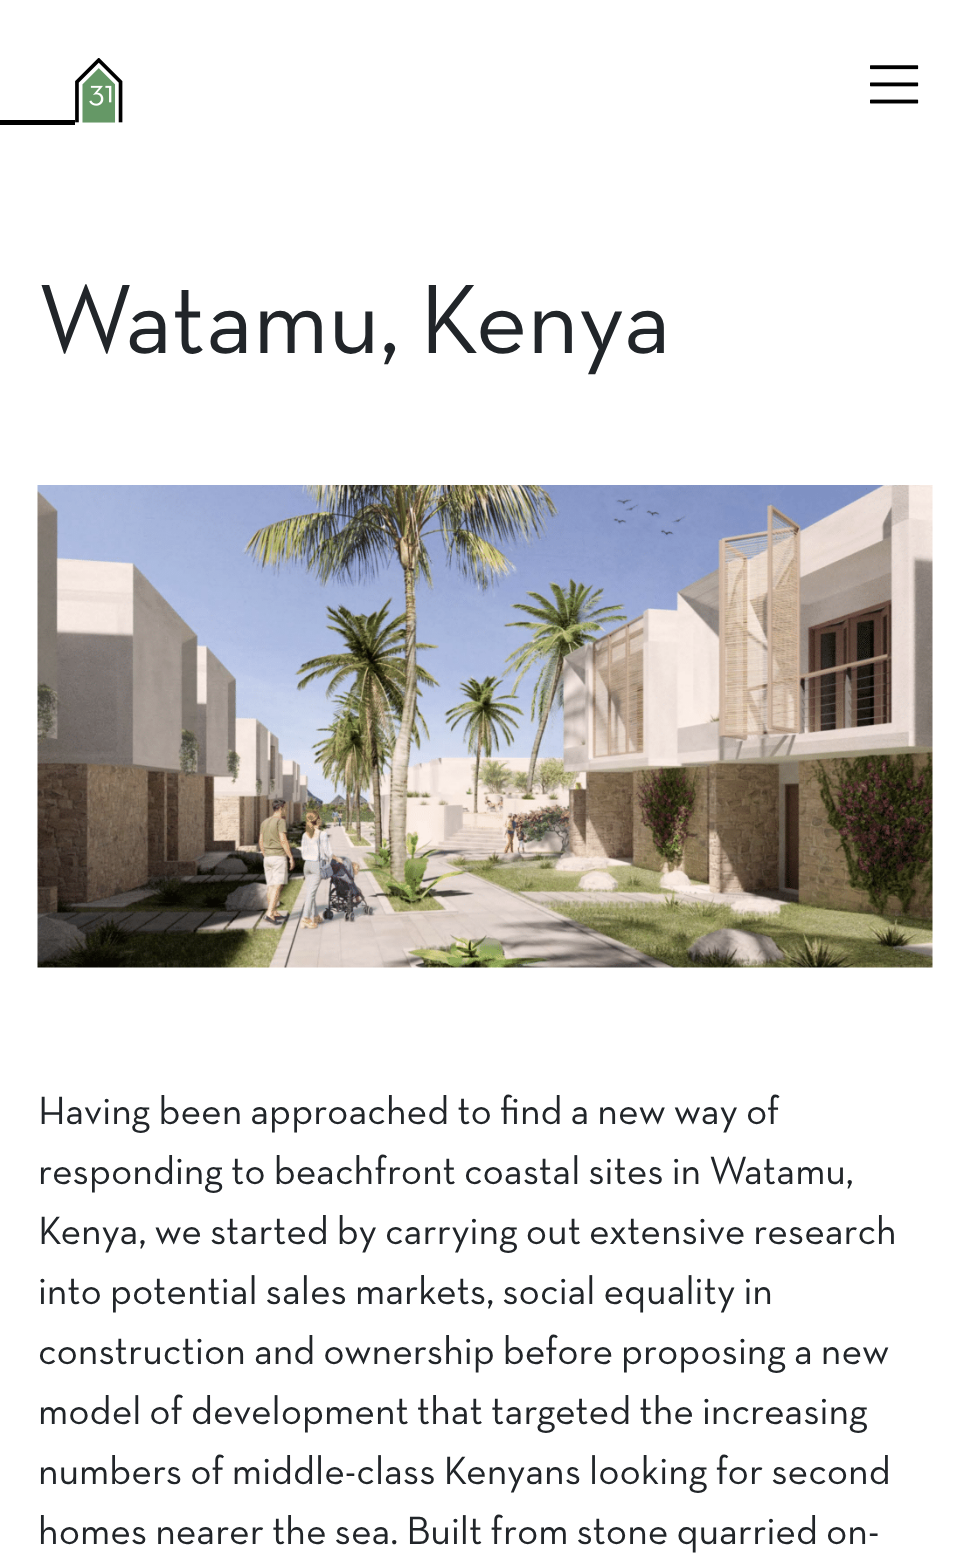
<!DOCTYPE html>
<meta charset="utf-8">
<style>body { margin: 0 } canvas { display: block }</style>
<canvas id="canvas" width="969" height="1564"></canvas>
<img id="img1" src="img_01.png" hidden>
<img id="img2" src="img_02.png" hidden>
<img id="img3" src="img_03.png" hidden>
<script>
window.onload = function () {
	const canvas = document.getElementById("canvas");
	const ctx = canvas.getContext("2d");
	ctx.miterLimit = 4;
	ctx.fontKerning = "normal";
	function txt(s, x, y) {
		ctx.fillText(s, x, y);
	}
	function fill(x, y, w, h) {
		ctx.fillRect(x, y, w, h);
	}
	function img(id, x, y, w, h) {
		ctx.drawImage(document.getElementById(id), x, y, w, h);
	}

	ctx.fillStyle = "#FFFFFF";
	fill(0, 0, 969, 1564);
	ctx.fillStyle = "#000000";
	fill(0, 120, 75, 5);
	img("img1", 75, 58, 48, 65);
	img("img2", 870, 65, 49, 39);
	img("img3", 37, 485, 896, 483);
	ctx.font = "100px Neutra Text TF";
	ctx.fillStyle = "#212529";
	txt("Watamu, Kenya", 38, 353);
	ctx.font = "40px Neutra Text TF";
	txt("Having been approached to find a new way of", 38, 1124);
	txt("responding to beachfront coastal sites in Watamu,", 38, 1184);
	txt("Kenya, we started by carrying out extensive research", 38, 1244);
	txt("into potential sales markets, social equality in", 38, 1304);
	txt("construction and ownership before proposing a new", 38, 1364);
	txt("model of development that targeted the increasing", 38, 1424);
	txt("numbers of middle-class Kenyans looking for second", 38, 1484);
	txt("homes nearer the sea. Built from stone quarried on-", 38, 1544);
};
</script>
